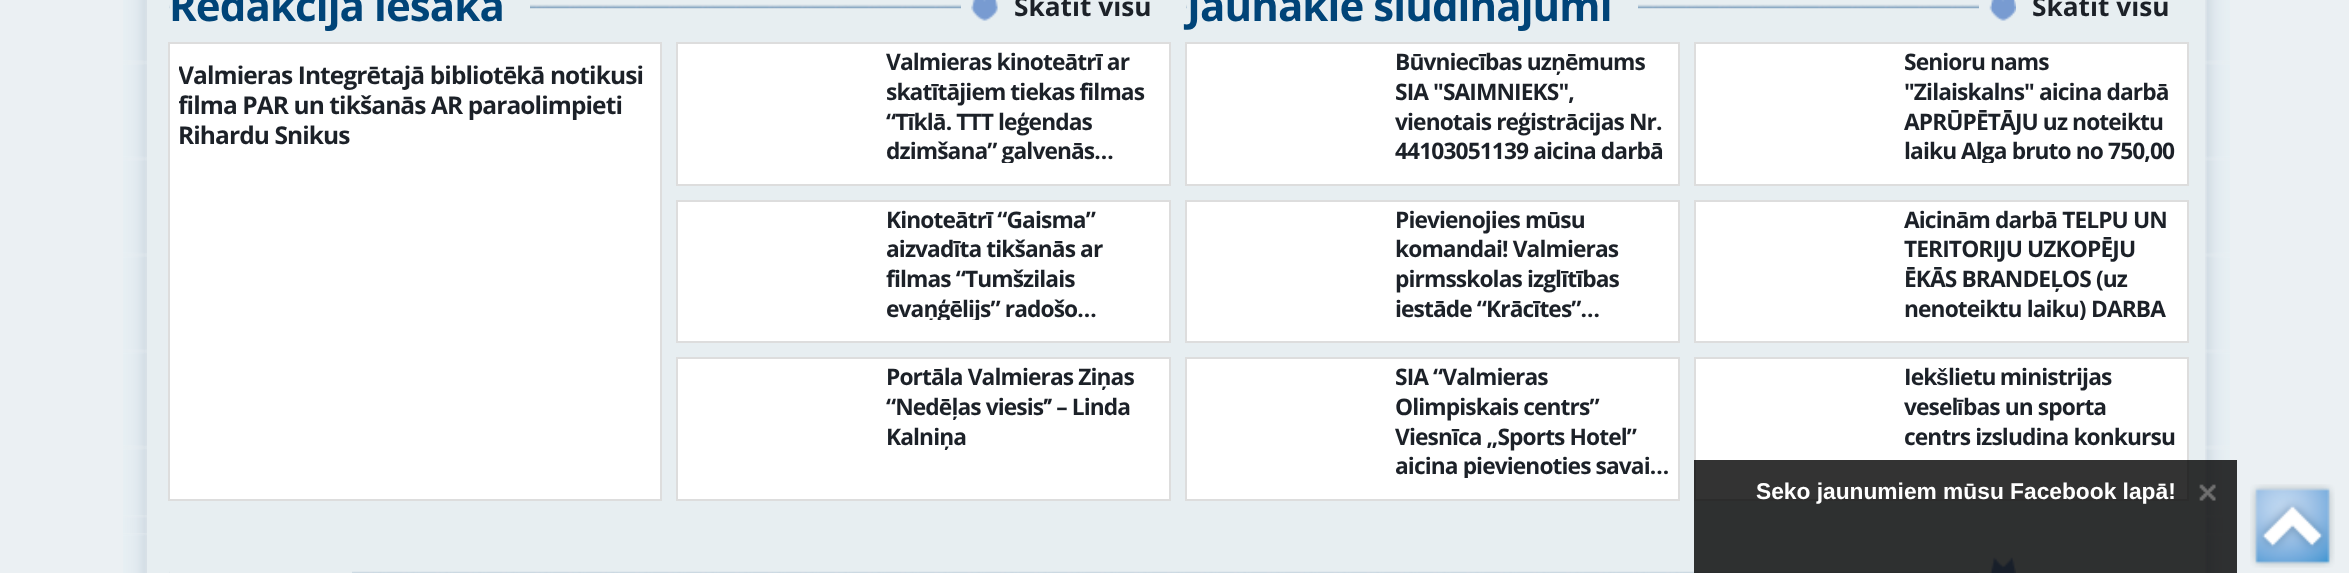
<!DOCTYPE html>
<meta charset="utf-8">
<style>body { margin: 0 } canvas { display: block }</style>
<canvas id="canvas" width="2349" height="573"></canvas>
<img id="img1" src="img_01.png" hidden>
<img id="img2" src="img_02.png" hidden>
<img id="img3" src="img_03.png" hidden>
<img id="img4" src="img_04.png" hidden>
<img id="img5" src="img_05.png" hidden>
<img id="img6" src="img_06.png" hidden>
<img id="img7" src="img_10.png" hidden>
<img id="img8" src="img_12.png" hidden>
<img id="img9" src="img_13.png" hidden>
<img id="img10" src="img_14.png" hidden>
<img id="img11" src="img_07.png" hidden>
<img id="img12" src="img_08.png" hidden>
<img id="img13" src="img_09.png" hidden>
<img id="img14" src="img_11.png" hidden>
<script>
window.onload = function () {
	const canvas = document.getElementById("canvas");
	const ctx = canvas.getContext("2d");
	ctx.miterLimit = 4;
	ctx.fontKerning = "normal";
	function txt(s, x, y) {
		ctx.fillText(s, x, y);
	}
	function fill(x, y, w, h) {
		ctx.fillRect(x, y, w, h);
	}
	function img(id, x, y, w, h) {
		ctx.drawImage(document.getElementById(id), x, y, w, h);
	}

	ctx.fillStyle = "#EBF0F3";
	fill(0, 0, 2349, 573);
	ctx.fillStyle = "#E7EEF1";
	fill(147, 0, 2058, 573);
	img("img1", 123, 0, 24, 516);
	img("img2", 169, 4, 792, 5);
	fill(170, 4, 360, 5);
	img("img3", 971, 0, 27, 21);
	img("img4", 1186, 4, 793, 5);
	fill(1187, 4, 451, 5);
	img("img5", 1989, 0, 27, 21);
	img("img6", 2205, 0, 25, 516);
	ctx.fillStyle = "#FFFFFF";
	ctx.beginPath();
	ctx.rect(169, 43, 492, 457);
	ctx.fill();
	ctx.strokeStyle = "#DDDDDD";
	ctx.lineWidth = 2;
	ctx.stroke();
	ctx.beginPath();
	ctx.rect(677, 43, 493, 142);
	ctx.fill();
	ctx.stroke();
	ctx.beginPath();
	ctx.rect(677, 201, 493, 141);
	ctx.fill();
	ctx.stroke();
	ctx.beginPath();
	ctx.rect(677, 358, 493, 142);
	ctx.fill();
	ctx.stroke();
	ctx.beginPath();
	ctx.rect(1186, 43, 493, 142);
	ctx.fill();
	ctx.stroke();
	ctx.beginPath();
	ctx.rect(1186, 201, 493, 141);
	ctx.fill();
	ctx.stroke();
	ctx.beginPath();
	ctx.rect(1186, 358, 493, 142);
	ctx.fill();
	ctx.stroke();
	ctx.beginPath();
	ctx.rect(1695, 43, 493, 142);
	ctx.fill();
	ctx.stroke();
	ctx.beginPath();
	ctx.rect(1695, 201, 493, 141);
	ctx.fill();
	ctx.stroke();
	ctx.beginPath();
	ctx.rect(1695, 358, 493, 142);
	ctx.fill();
	ctx.stroke();
	img("img7", 2205, 516, 25, 18);
	img("img8", 169, 571, 1810, 2);
	img("img9", 1989, 557, 27, 16);
	img("img10", 2205, 533, 25, 40);
	ctx.fillStyle = "rgba(0, 0, 0, 0.8)";
	fill(1694, 460, 543, 113);
	img("img11", 2199, 484, 17, 17);
	img("img12", 2250, 484, 85, 84);
	img("img13", 123, 516, 24, 18);
	img("img14", 123, 533, 24, 40);
	ctx.fillStyle = "#E7EEF1";
	fill(170, 571, 182, 2);
	ctx.letterSpacing = "-0.9px";
	ctx.font = "bold 42px Open Sans";
	ctx.fillStyle = "#004478";
	txt("Redakcija iesaka", 169, 21);
	ctx.letterSpacing = "0px";
	ctx.font = "bold 26.25px Open Sans";
	ctx.fillStyle = "#1C2128";
	txt("Skatīt visu", 1014, 16);
	ctx.letterSpacing = "-0.9px";
	ctx.font = "bold 42px Open Sans";
	ctx.fillStyle = "#004478";
	txt("Jaunākie sludinājumi", 1187, 21);
	ctx.letterSpacing = "0px";
	ctx.font = "bold 26.25px Open Sans";
	ctx.fillStyle = "#1C2128";
	txt("Skatīt visu", 2032, 16);
	ctx.save();
	ctx.beginPath();
	ctx.rect(179, 60, 472, 89);
	ctx.clip();
	ctx.letterSpacing = "-0.9px";
	ctx.font = "bold 24.5px Open Sans";
	txt("Valmieras Integrētajā bibliotēkā notikusi", 178, 84);
	txt("filma PAR un tikšanās AR paraolimpieti", 178, 114);
	ctx.restore();
	ctx.letterSpacing = "-0.9px";
	ctx.font = "bold 24.5px Open Sans";
	txt("Rihardu Snikus", 178, 144);
	ctx.font = "bold 22.75px Open Sans";
	txt("Valmieras kinoteātrī ar", 886, 70);
	txt("skatītājiem tiekas filmas", 886, 100);
	txt("“Tīklā. TTT leģendas", 886, 130);
	ctx.save();
	ctx.beginPath();
	ctx.rect(886, 47, 274, 116);
	ctx.clip();
	txt("dzimšana” galvenās…", 886, 159);
	ctx.restore();
	txt("Kinoteātrī “Gaisma”", 886, 228);
	txt("aizvadīta tikšanās ar", 886, 257);
	txt("filmas “Tumšzilais", 886, 287);
	ctx.save();
	ctx.beginPath();
	ctx.rect(886, 205, 274, 115);
	ctx.clip();
	txt("evaņģēlijs” radošo…", 886, 317);
	ctx.restore();
	txt("Portāla Valmieras Ziņas", 886, 385);
	txt("“Nedēļas viesis’’ – Linda", 886, 415);
	txt("Kalniņa", 886, 445);
	txt("Būvniecības uzņēmums", 1395, 70);
	txt("SIA \"SAIMNIEKS\",", 1395, 100);
	txt("vienotais reģistrācijas Nr.", 1395, 130);
	txt("44103051139 aicina darbā", 1395, 159);
	txt("Pievienojies mūsu", 1395, 228);
	txt("komandai! Valmieras", 1395, 257);
	txt("pirmsskolas izglītības", 1395, 287);
	txt("iestāde “Krācītes”…", 1395, 317);
	txt("SIA “Valmieras", 1395, 385);
	txt("Olimpiskais centrs”", 1395, 415);
	txt("Viesnīca „Sports Hotel”", 1395, 445);
	ctx.save();
	ctx.beginPath();
	ctx.rect(1395, 362, 275, 116);
	ctx.clip();
	txt("aicina pievienoties savai…", 1395, 474);
	ctx.restore();
	txt("Senioru nams", 1904, 70);
	txt("\"Zilaiskalns\" aicina darbā", 1904, 100);
	txt("APRŪPĒTĀJU uz noteiktu", 1904, 130);
	txt("laiku", 1904, 159);
	ctx.save();
	ctx.beginPath();
	ctx.rect(1904, 47, 273, 116);
	ctx.clip();
	txt("Alga bruto no 750,00", 1961, 159);
	ctx.restore();
	txt("Aicinām darbā TELPU UN", 1904, 228);
	txt("TERITORIJU UZKOPĒJU", 1904, 257);
	txt("ĒKĀS BRANDEĻOS (uz", 1904, 287);
	ctx.save();
	ctx.beginPath();
	ctx.rect(1904, 205, 273, 115);
	ctx.clip();
	txt("nenoteiktu laiku)", 1904, 317);
	ctx.restore();
	txt("DARBA", 2091, 317);
	txt("Iek", 1904, 385);
	ctx.font = "bold 22.75px Liberation Sans";
	txt("š", 1936, 385);
	ctx.wordSpacing = "-1px";
	ctx.font = "bold 22.75px Open Sans";
	txt("lietu ministrijas", 1948, 385);
	ctx.wordSpacing = "0px";
	txt("vesel", 1904, 415);
	ctx.font = "bold 22.75px Liberation Sans";
	txt("ī", 1957, 415);
	ctx.font = "bold 22.75px Open Sans";
	txt("bas un sporta", 1963, 415);
	txt("centrs izsludina konkursu", 1904, 445);
	ctx.letterSpacing = "0px";
	ctx.font = "bold 22.75px Liberation Sans";
	ctx.fillStyle = "#FFFFFF";
	txt("Seko jaunumiem mūsu Facebook lapā!", 1756, 499);
};
</script>
